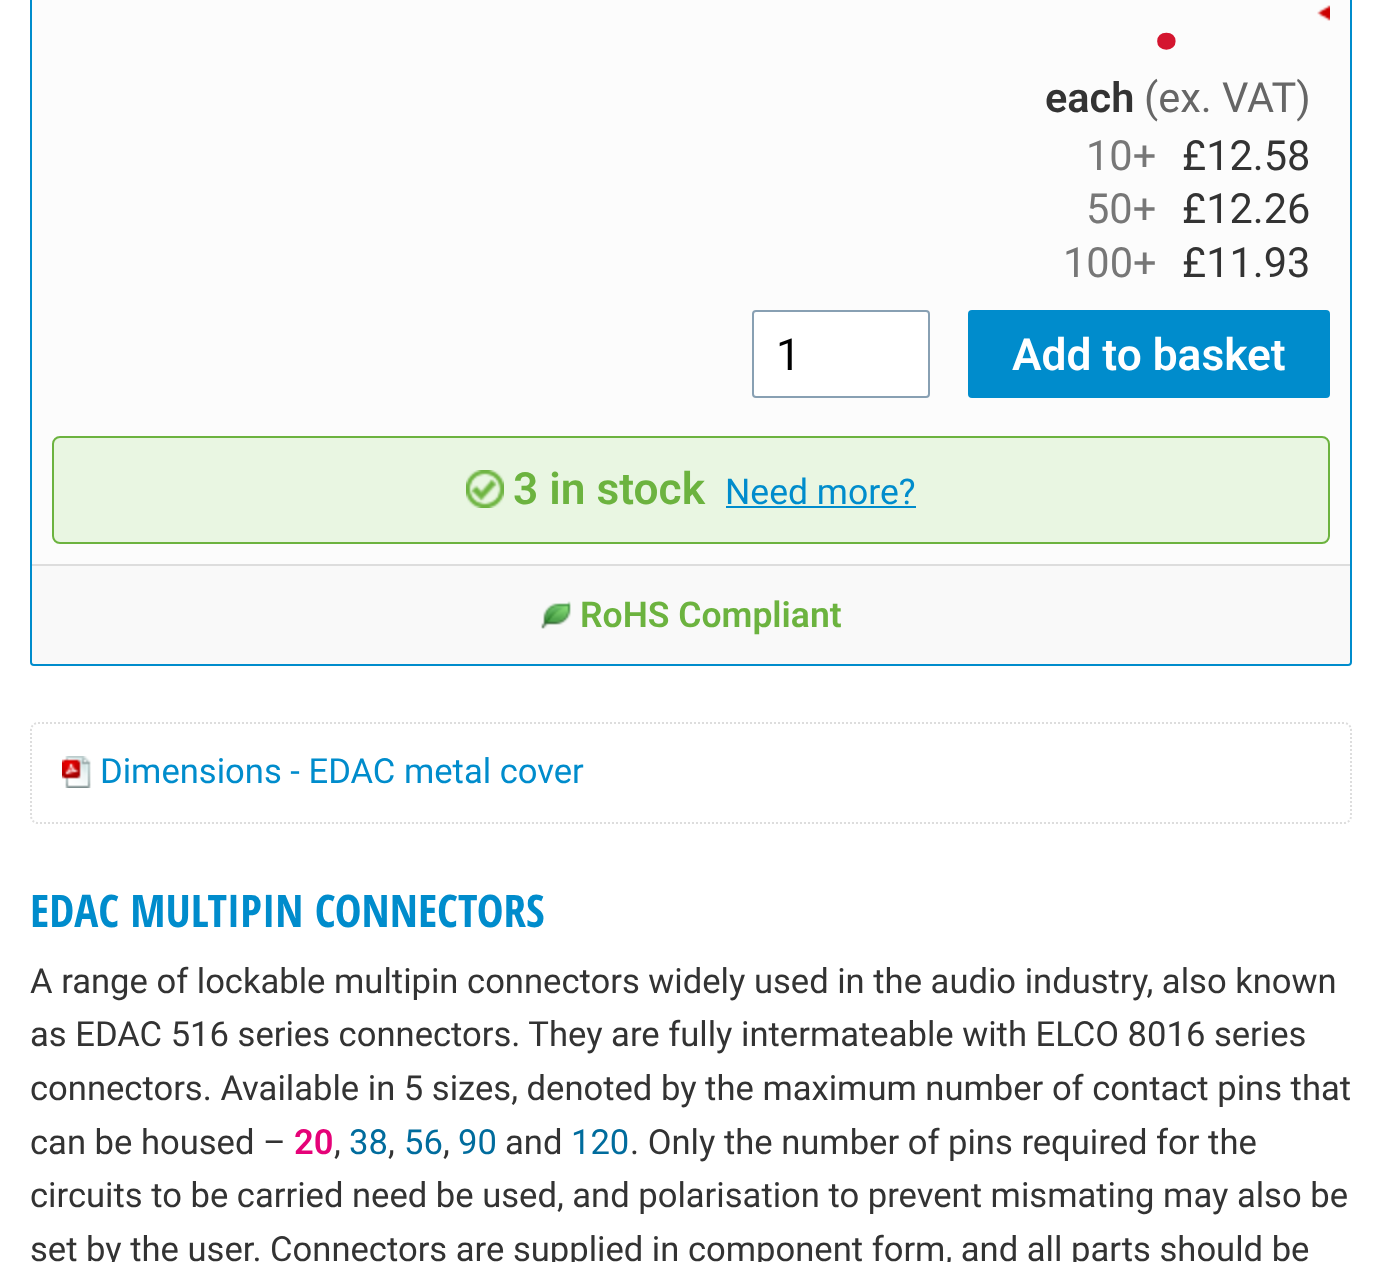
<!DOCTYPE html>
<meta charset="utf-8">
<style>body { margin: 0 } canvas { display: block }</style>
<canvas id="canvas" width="1381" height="1262"></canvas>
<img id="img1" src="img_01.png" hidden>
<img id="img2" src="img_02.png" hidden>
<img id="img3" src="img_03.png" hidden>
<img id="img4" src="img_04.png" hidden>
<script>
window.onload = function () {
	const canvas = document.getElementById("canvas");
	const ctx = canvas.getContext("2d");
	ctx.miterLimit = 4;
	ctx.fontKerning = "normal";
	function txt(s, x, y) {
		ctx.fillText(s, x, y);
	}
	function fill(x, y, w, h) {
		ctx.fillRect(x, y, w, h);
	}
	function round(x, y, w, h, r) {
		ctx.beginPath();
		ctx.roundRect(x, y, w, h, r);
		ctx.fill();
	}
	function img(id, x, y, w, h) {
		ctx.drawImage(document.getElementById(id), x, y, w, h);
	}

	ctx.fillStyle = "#FFFFFF";
	fill(0, 0, 1381, 1262);
	ctx.fillStyle = "#FCFCFC";
	ctx.beginPath();
	ctx.roundRect(31, -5, 1320, 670, 3);
	ctx.fill();
	ctx.strokeStyle = "#008CCC";
	ctx.lineWidth = 2;
	ctx.stroke();
	img("img1", 1317, 5, 13, 16);
	ctx.fillStyle = "#FFFFFF";
	ctx.beginPath();
	ctx.roundRect(753, 311, 176, 86, 3);
	ctx.fill();
	ctx.strokeStyle = "#88A0B3";
	ctx.stroke();
	ctx.fillStyle = "#008CCC";
	round(968, 310, 362, 88, 4);
	ctx.fillStyle = "#E9F6E2";
	ctx.beginPath();
	ctx.roundRect(53, 437, 1276, 106, 7);
	ctx.fill();
	ctx.strokeStyle = "#6CB33F";
	ctx.stroke();
	img("img2", 466, 470, 38, 38);
	ctx.fillStyle = "#008CCC";
	fill(726, 506, 190, 2);
	ctx.fillStyle = "#F9F9F9";
	ctx.beginPath();
	ctx.roundRect(32, 564, 1318, 100, [0, 0, 4, 4]);
	ctx.fill();
	ctx.fillStyle = "#DDDDDD";
	fill(32, 564, 1318, 2);
	img("img3", 541, 601, 30, 28);
	ctx.beginPath();
	ctx.moveTo(38, 723);
	ctx.lineTo(1344, 723);
	ctx.bezierCurveTo(1348, 723, 1351, 726, 1351, 730);
	ctx.lineTo(1351, 816);
	ctx.bezierCurveTo(1351, 820, 1348, 823, 1344, 823);
	ctx.lineTo(38, 823);
	ctx.bezierCurveTo(34, 823, 31, 820, 31, 816);
	ctx.lineTo(31, 730);
	ctx.bezierCurveTo(31, 726, 34, 723, 38, 723);
	ctx.closePath();
	ctx.strokeStyle = "#DDDDDD";
	ctx.setLineDash([2, 2]);
	ctx.stroke();
	img("img4", 62, 756, 29, 32);
	ctx.letterSpacing = "-2px";
	ctx.font = "bold 116px Roboto";
	ctx.fillStyle = "#D4152F";
	txt(".", 1150, 49);
	ctx.letterSpacing = "0px";
	ctx.font = "600 41.5px Roboto";
	ctx.fillStyle = "#333333";
	txt("each", 1045, 112);
	ctx.font = "41.5px Roboto";
	ctx.fillStyle = "#666666";
	txt("(ex. VAT)", 1144, 112);
	ctx.fillStyle = "#777777";
	txt("10+", 1086, 170);
	ctx.fillStyle = "#333333";
	txt("£12.58", 1182, 170);
	ctx.fillStyle = "#777777";
	txt("50+", 1086, 223);
	ctx.fillStyle = "#333333";
	txt("£12.26", 1182, 223);
	ctx.fillStyle = "#777777";
	txt("100+", 1063, 277);
	ctx.fillStyle = "#333333";
	txt("£11.93", 1182, 277);
	ctx.font = "44.25px Roboto";
	ctx.fillStyle = "#000000";
	txt("1", 776, 370);
	ctx.font = "600 44.25px Roboto";
	ctx.fillStyle = "#FFFFFF";
	txt("Add to basket", 1012, 370);
	ctx.fillStyle = "#6CB33F";
	txt("3 in stock", 513, 504);
	ctx.font = "35.5px Roboto";
	ctx.fillStyle = "#008CCC";
	txt("Need more?", 725, 504);
	ctx.font = "600 35.5px Roboto";
	ctx.fillStyle = "#6CB33F";
	txt("RoHS Compliant", 580, 627);
	ctx.font = "34.6px Roboto";
	ctx.fillStyle = "#008CCC";
	txt("Dimensions - EDAC metal cover", 100, 783);
	ctx.font = "bold 45px Open Sans Condensed";
	txt("EDAC MULTIPIN CONNECTORS", 30, 927);
	ctx.font = "34.6px Roboto";
	ctx.fillStyle = "#333333";
	txt("A range of lockable multipin connectors widely used in the audio industry, also known", 30, 993);
	txt("as EDAC 516 series connectors. They are fully intermateable with ELCO 8016 series", 30, 1046);
	txt("connectors. Available in 5 sizes, denoted by the maximum number of contact pins that", 30, 1100);
	txt("can be housed –", 30, 1154);
	ctx.font = "600 34.6px Roboto";
	ctx.fillStyle = "#E50278";
	txt("20", 294, 1154);
	ctx.font = "34.6px Roboto";
	ctx.fillStyle = "#333333";
	txt(",", 334, 1154);
	ctx.fillStyle = "#006C9D";
	txt("38", 349, 1154);
	ctx.fillStyle = "#333333";
	txt(",", 388, 1154);
	ctx.fillStyle = "#006C9D";
	txt("56", 404, 1154);
	ctx.fillStyle = "#333333";
	txt(",", 443, 1154);
	ctx.fillStyle = "#006C9D";
	txt("90", 458, 1154);
	ctx.fillStyle = "#333333";
	txt("and", 505, 1154);
	ctx.fillStyle = "#006C9D";
	txt("120", 571, 1154);
	ctx.fillStyle = "#333333";
	txt(". Only the number of pins required for the", 630, 1154);
	txt("circuits to be carried need be used, and polarisation to prevent mismating may also be", 30, 1207);
	txt("set by the user. Connectors are supplied in component form, and all parts should be", 30, 1261);
};
</script>
